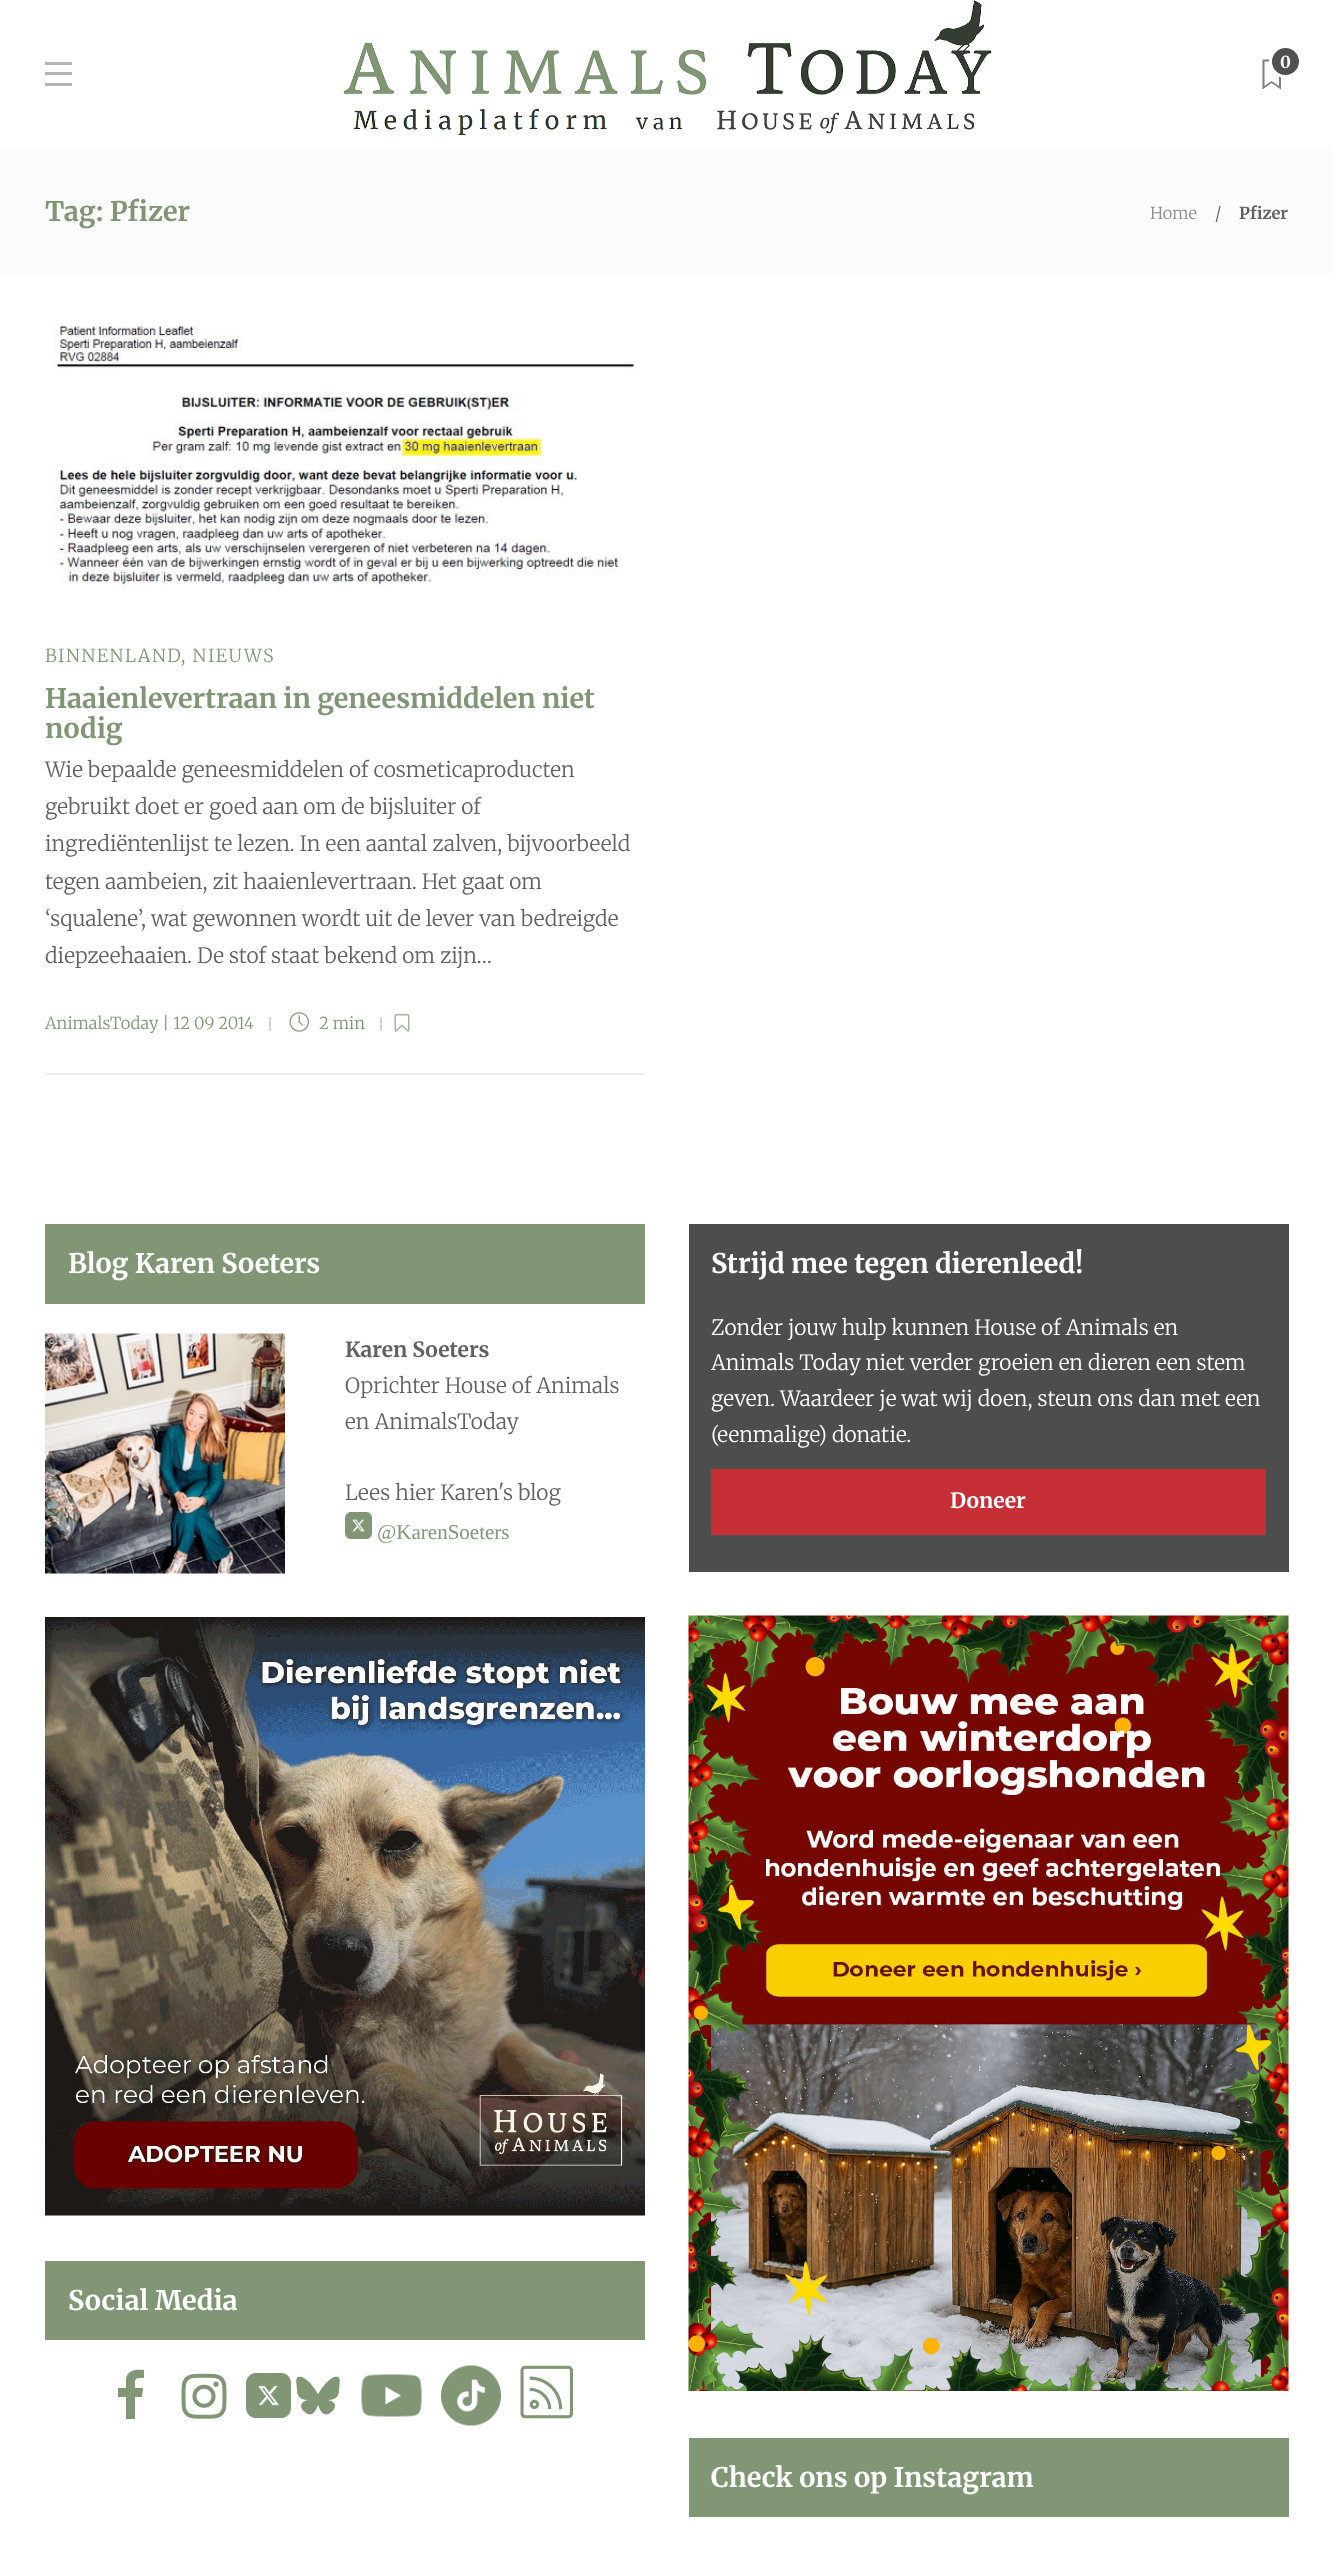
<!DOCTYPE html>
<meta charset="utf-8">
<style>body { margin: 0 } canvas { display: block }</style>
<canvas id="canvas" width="1333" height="2574"></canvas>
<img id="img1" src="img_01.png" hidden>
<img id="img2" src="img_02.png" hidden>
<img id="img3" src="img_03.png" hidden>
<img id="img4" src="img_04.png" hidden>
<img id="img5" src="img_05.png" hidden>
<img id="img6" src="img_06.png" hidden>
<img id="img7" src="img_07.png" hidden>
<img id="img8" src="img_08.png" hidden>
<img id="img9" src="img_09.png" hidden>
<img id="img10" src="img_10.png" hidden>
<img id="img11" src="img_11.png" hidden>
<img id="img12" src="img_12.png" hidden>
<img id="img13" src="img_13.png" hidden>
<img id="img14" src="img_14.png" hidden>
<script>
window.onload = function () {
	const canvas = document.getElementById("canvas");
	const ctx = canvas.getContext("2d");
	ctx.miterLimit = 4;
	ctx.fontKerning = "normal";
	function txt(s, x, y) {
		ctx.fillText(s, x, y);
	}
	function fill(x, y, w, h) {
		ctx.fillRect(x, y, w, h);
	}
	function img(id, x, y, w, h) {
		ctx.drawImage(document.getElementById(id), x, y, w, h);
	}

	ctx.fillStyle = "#FFFFFF";
	fill(0, 0, 1333, 2574);
	ctx.fillStyle = "#B5B5B5";
	fill(45, 62, 27, 3);
	fill(45, 72, 27, 3);
	fill(45, 83, 27, 3);
	img("img1", 343, 0, 649, 135);
	ctx.fillStyle = "#7E7E7E";
	ctx.beginPath();
	ctx.moveTo(1262.5, 59.5);
	ctx.lineTo(1262.5, 89.5);
	ctx.lineTo(1271.5, 83);
	ctx.lineTo(1281, 89.5);
	ctx.lineTo(1281, 59.5);
	ctx.closePath();
	ctx.moveTo(1279, 86);
	ctx.lineTo(1271.5, 81);
	ctx.lineTo(1264.5, 86);
	ctx.lineTo(1264.5, 61.5);
	ctx.lineTo(1279, 61.5);
	ctx.closePath();
	ctx.fill();
	ctx.fillStyle = "#505050";
	ctx.beginPath();
	ctx.arc(1285.5, 61.5, 15, 0, Math.PI * 2);
	ctx.fill();
	ctx.strokeStyle = "#FFFFFF";
	ctx.lineWidth = 3;
	ctx.stroke();
	ctx.fillStyle = "#FBFBFB";
	fill(0, 149, 1333, 124);
	ctx.fillStyle = "#F0F0F0";
	fill(45, 1073, 600, 2);
	img("img2", 53, 326, 583, 265);
	ctx.fillStyle = "#D6D6D6";
	fill(269, 1017, 2, 14);
	img("img3", 289, 1012, 20, 20);
	fill(380, 1017, 2, 14);
	img("img4", 394, 1014, 16, 18);
	ctx.fillStyle = "#809675";
	fill(45, 1224, 600, 80);
	img("img5", 45, 1333, 240, 241);
	img("img6", 345, 1512, 27, 27);
	ctx.fillStyle = "#4D4D4D";
	fill(689, 1224, 600, 348);
	ctx.fillStyle = "#C62F35";
	fill(711, 1469, 555, 66);
	img("img7", 45, 1617, 600, 599);
	img("img8", 688, 1615, 601, 776);
	ctx.fillStyle = "#809675";
	fill(45, 2261, 600, 79);
	ctx.beginPath();
	ctx.moveTo(144, 2370);
	ctx.lineTo(144, 2378);
	ctx.bezierCurveTo(134, 2378, 135, 2378, 135, 2388);
	ctx.lineTo(143, 2388);
	ctx.lineTo(142, 2397);
	ctx.lineTo(135, 2397);
	ctx.lineTo(135, 2419);
	ctx.lineTo(126, 2419);
	ctx.lineTo(126, 2397);
	ctx.lineTo(118, 2397);
	ctx.lineTo(118, 2388);
	ctx.lineTo(126, 2388);
	ctx.lineTo(126, 2379);
	ctx.bezierCurveTo(127, 2370, 136, 2369, 144, 2370);
	ctx.closePath();
	ctx.fill();
	img("img9", 181, 2373, 46, 46);
	img("img10", 246, 2373, 45, 45);
	img("img11", 296, 2376, 44, 39);
	img("img12", 361, 2374, 61, 43);
	img("img13", 441, 2365, 60, 61);
	img("img14", 520, 2365, 53, 54);
	fill(689, 2438, 600, 79);
	ctx.font = "bold 16.5px Merriweather";
	ctx.fillStyle = "#FFFFFF";
	txt("0", 1280, 68);
	ctx.font = "bold 27px Merriweather";
	ctx.fillStyle = "#809675";
	txt("Tag: Pfizer", 45, 221);
	ctx.font = "300 16.5px Merriweather";
	ctx.fillStyle = "#8D8D8D";
	txt("Home", 1150, 219);
	ctx.fillStyle = "#616161";
	txt("/", 1215, 219);
	ctx.font = "bold 16.5px Merriweather";
	txt("Pfizer", 1239, 219);
	ctx.letterSpacing = "1.5px";
	ctx.font = "300 18px Merriweather";
	ctx.fillStyle = "#809675";
	txt("BINNENLAND", 45, 662);
	txt(", NIEUWS", 181, 662);
	ctx.letterSpacing = "0px";
	ctx.font = "bold 27px Merriweather";
	txt("Haaienlevertraan in geneesmiddelen niet", 45, 708);
	txt("nodig", 45, 738);
	ctx.font = "300 21px Merriweather";
	ctx.fillStyle = "#616161";
	txt("Wie bepaalde geneesmiddelen of cosmeticaproducten", 45, 777);
	txt("gebruikt doet er goed aan om de bijsluiter of", 45, 814);
	txt("ingrediëntenlijst te lezen. In een aantal zalven, bijvoorbeeld", 45, 851);
	txt("tegen aambeien, zit haaienlevertraan. Het gaat om", 45, 889);
	txt("‘squalene’, wat gewonnen wordt uit de lever van bedreigde", 45, 926);
	txt("diepzeehaaien. De stof staat bekend om zijn…", 45, 963);
	ctx.font = "300 16.5px Merriweather";
	ctx.fillStyle = "#809675";
	txt("AnimalsToday | 12 09 2014", 45, 1029);
	txt("2 min", 319, 1029);
	ctx.font = "bold 27px Merriweather";
	ctx.fillStyle = "#FFFFFF";
	txt("Blog Karen Soeters", 68, 1273);
	ctx.font = "bold 21px Merriweather";
	ctx.fillStyle = "#616161";
	txt("Karen Soeters", 345, 1357);
	ctx.font = "300 21px Merriweather";
	txt("Oprichter House of Animals", 345, 1393);
	txt("en AnimalsToday", 345, 1429);
	txt("Lees hier Karen's blog", 345, 1500);
	ctx.font = "21px Liberation Serif";
	ctx.fillStyle = "#809675";
	txt("@KarenSoeters", 377, 1539);
	ctx.font = "bold 27px Merriweather";
	ctx.fillStyle = "#FFFFFF";
	txt("Strijd mee tegen dierenleed!", 711, 1273);
	ctx.font = "300 21px Merriweather";
	txt("Zonder jouw hulp kunnen House of Animals en", 711, 1335);
	txt("Animals Today niet verder groeien en dieren een stem", 711, 1370);
	txt("geven. Waardeer je wat wij doen, steun ons dan met een", 711, 1406);
	txt("(eenmalige) donatie.", 711, 1442);
	ctx.font = "bold 21px Merriweather";
	txt("Doneer", 950, 1508);
	ctx.font = "bold 27px Merriweather";
	txt("Social Media", 68, 2310);
	txt("Check ons op Instagram", 711, 2487);
};
</script>
